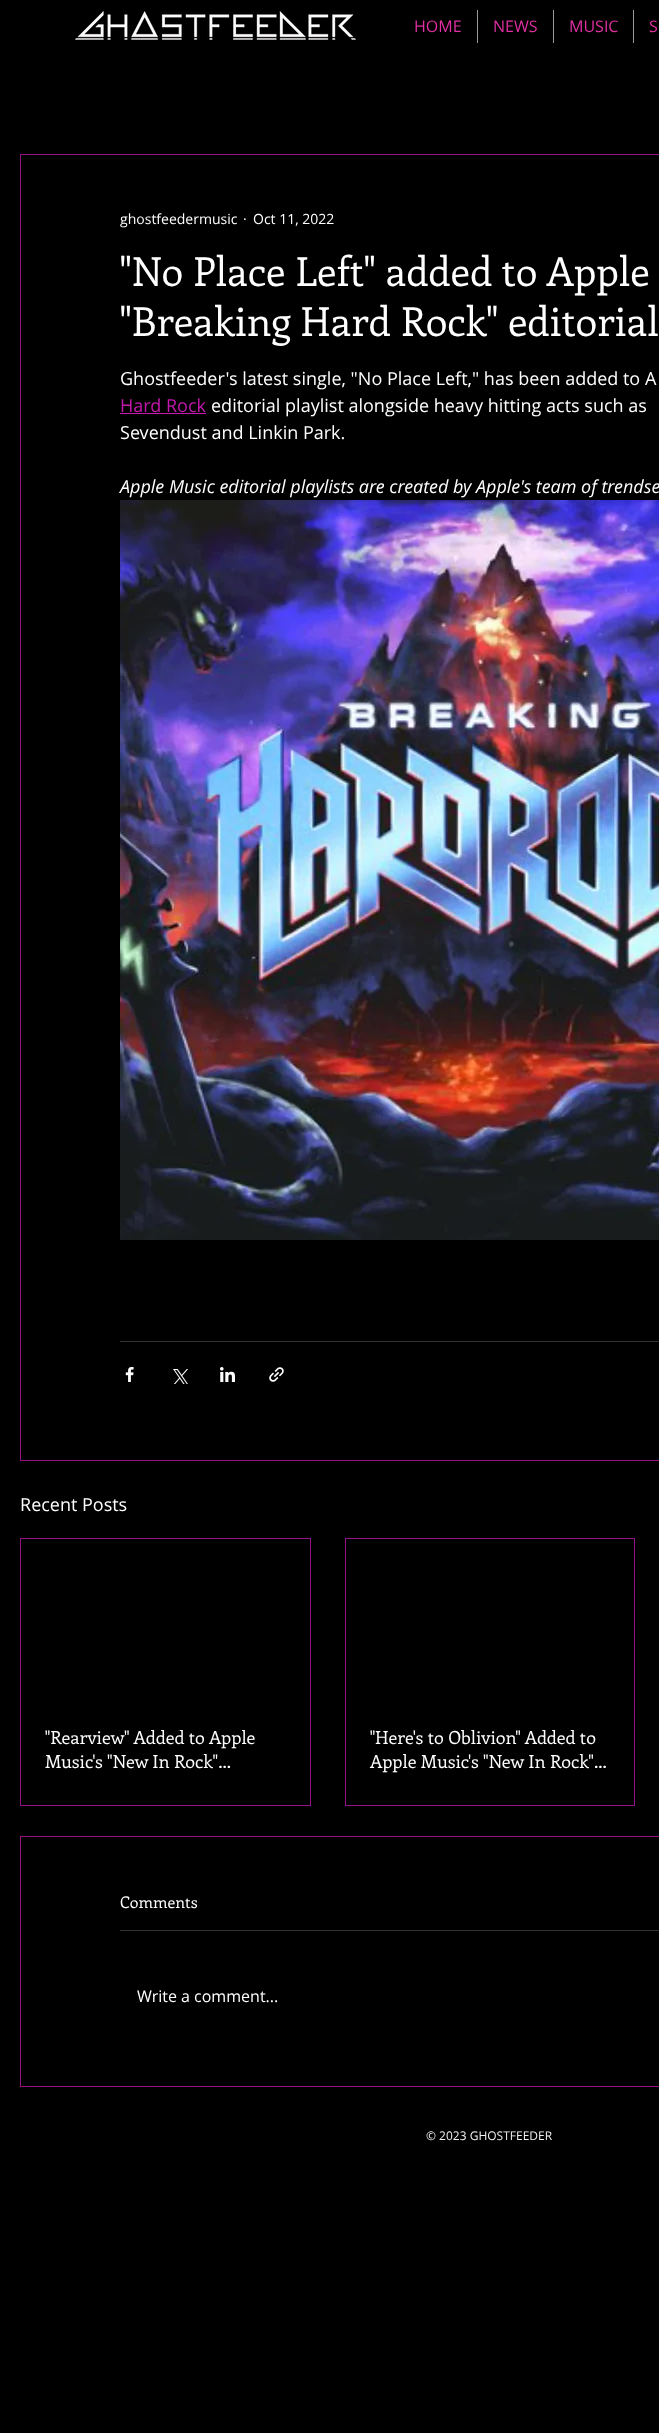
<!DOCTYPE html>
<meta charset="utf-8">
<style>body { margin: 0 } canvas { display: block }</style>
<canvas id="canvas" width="659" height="2433"></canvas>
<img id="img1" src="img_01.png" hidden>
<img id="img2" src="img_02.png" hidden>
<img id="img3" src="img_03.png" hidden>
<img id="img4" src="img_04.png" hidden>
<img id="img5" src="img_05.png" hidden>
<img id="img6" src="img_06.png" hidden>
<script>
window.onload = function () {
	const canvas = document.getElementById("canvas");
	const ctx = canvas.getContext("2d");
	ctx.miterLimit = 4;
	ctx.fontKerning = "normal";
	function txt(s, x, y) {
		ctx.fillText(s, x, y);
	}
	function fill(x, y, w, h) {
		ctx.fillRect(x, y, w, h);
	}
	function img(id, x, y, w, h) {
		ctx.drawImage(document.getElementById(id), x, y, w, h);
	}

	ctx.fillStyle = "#000000";
	fill(0, 0, 659, 2433);
	img("img1", 75, 11, 281, 29);
	ctx.fillStyle = "#999999";
	fill(477, 10, 1, 33);
	fill(553, 10, 1, 33);
	fill(633, 10, 1, 33);
	ctx.strokeStyle = "#941283";
	ctx.strokeRect(20.5, 154.5, 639, 1306);
	ctx.fillStyle = "#C518AF";
	fill(120, 413, 86, 1);
	img("img2", 120, 500, 539, 740);
	ctx.fillStyle = "#333333";
	fill(120, 1341, 539, 1);
	img("img3", 125, 1367, 9, 15);
	img("img4", 173, 1369, 15, 15);
	img("img5", 220, 1367, 15, 15);
	img("img6", 269, 1367, 15, 15);
	ctx.strokeRect(20.5, 1538.5, 290, 267);
	ctx.strokeRect(345.5, 1538.5, 289, 267);
	ctx.strokeRect(20.5, 1836.5, 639, 250);
	fill(120, 1930, 539, 1);
	ctx.font = "16px Open Sans";
	ctx.fillStyle = "#E030A2";
	txt("HOME", 414, 32);
	txt("NEWS", 493, 32);
	txt("MUSIC", 569, 32);
	txt("S", 649, 32);
	ctx.font = "14px Open Sans";
	ctx.fillStyle = "#FFFFFF";
	txt("ghostfeedermusic", 120, 224);
	txt("·", 243, 224);
	txt("Oct 11, 2022", 253, 224);
	ctx.font = "40px Enriqueta";
	txt("\"No Place Left\" added to Apple", 120, 286);
	txt("\"Breaking Hard Rock\" editorial", 120, 336);
	ctx.font = "18px Open Sans";
	txt("Ghostfeeder's latest single, \"No Place Left,\" has been added to A", 120, 385);
	ctx.fillStyle = "#C518AF";
	txt("Hard Rock", 120, 412);
	ctx.fillStyle = "#FFFFFF";
	txt("editorial playlist alongside heavy hitting acts such as", 211, 412);
	txt("Sevendust and Linkin Park.", 120, 439);
	ctx.font = "italic 18px Open Sans";
	txt("Apple Music editorial playlists are created by Apple's team of trendse", 120, 493);
	ctx.font = "18px Open Sans";
	txt("Recent Posts", 20, 1511);
	ctx.font = "18px Enriqueta";
	txt("\"Rearview\" Added to Apple", 45, 1744);
	txt("Music's \"New In Rock\"…", 45, 1768);
	txt("\"Here's to Oblivion\" Added to", 370, 1744);
	txt("Apple Music's \"New In Rock\"…", 370, 1768);
	ctx.font = "16px Enriqueta";
	txt("Comments", 120, 1908);
	ctx.font = "16px Open Sans";
	txt("Write a comment...", 137, 2002);
	ctx.font = "12px Open Sans";
	ctx.fillStyle = "#F1F1F1";
	txt("© 2023 GHOSTFEEDER", 426, 2140);
};
</script>
